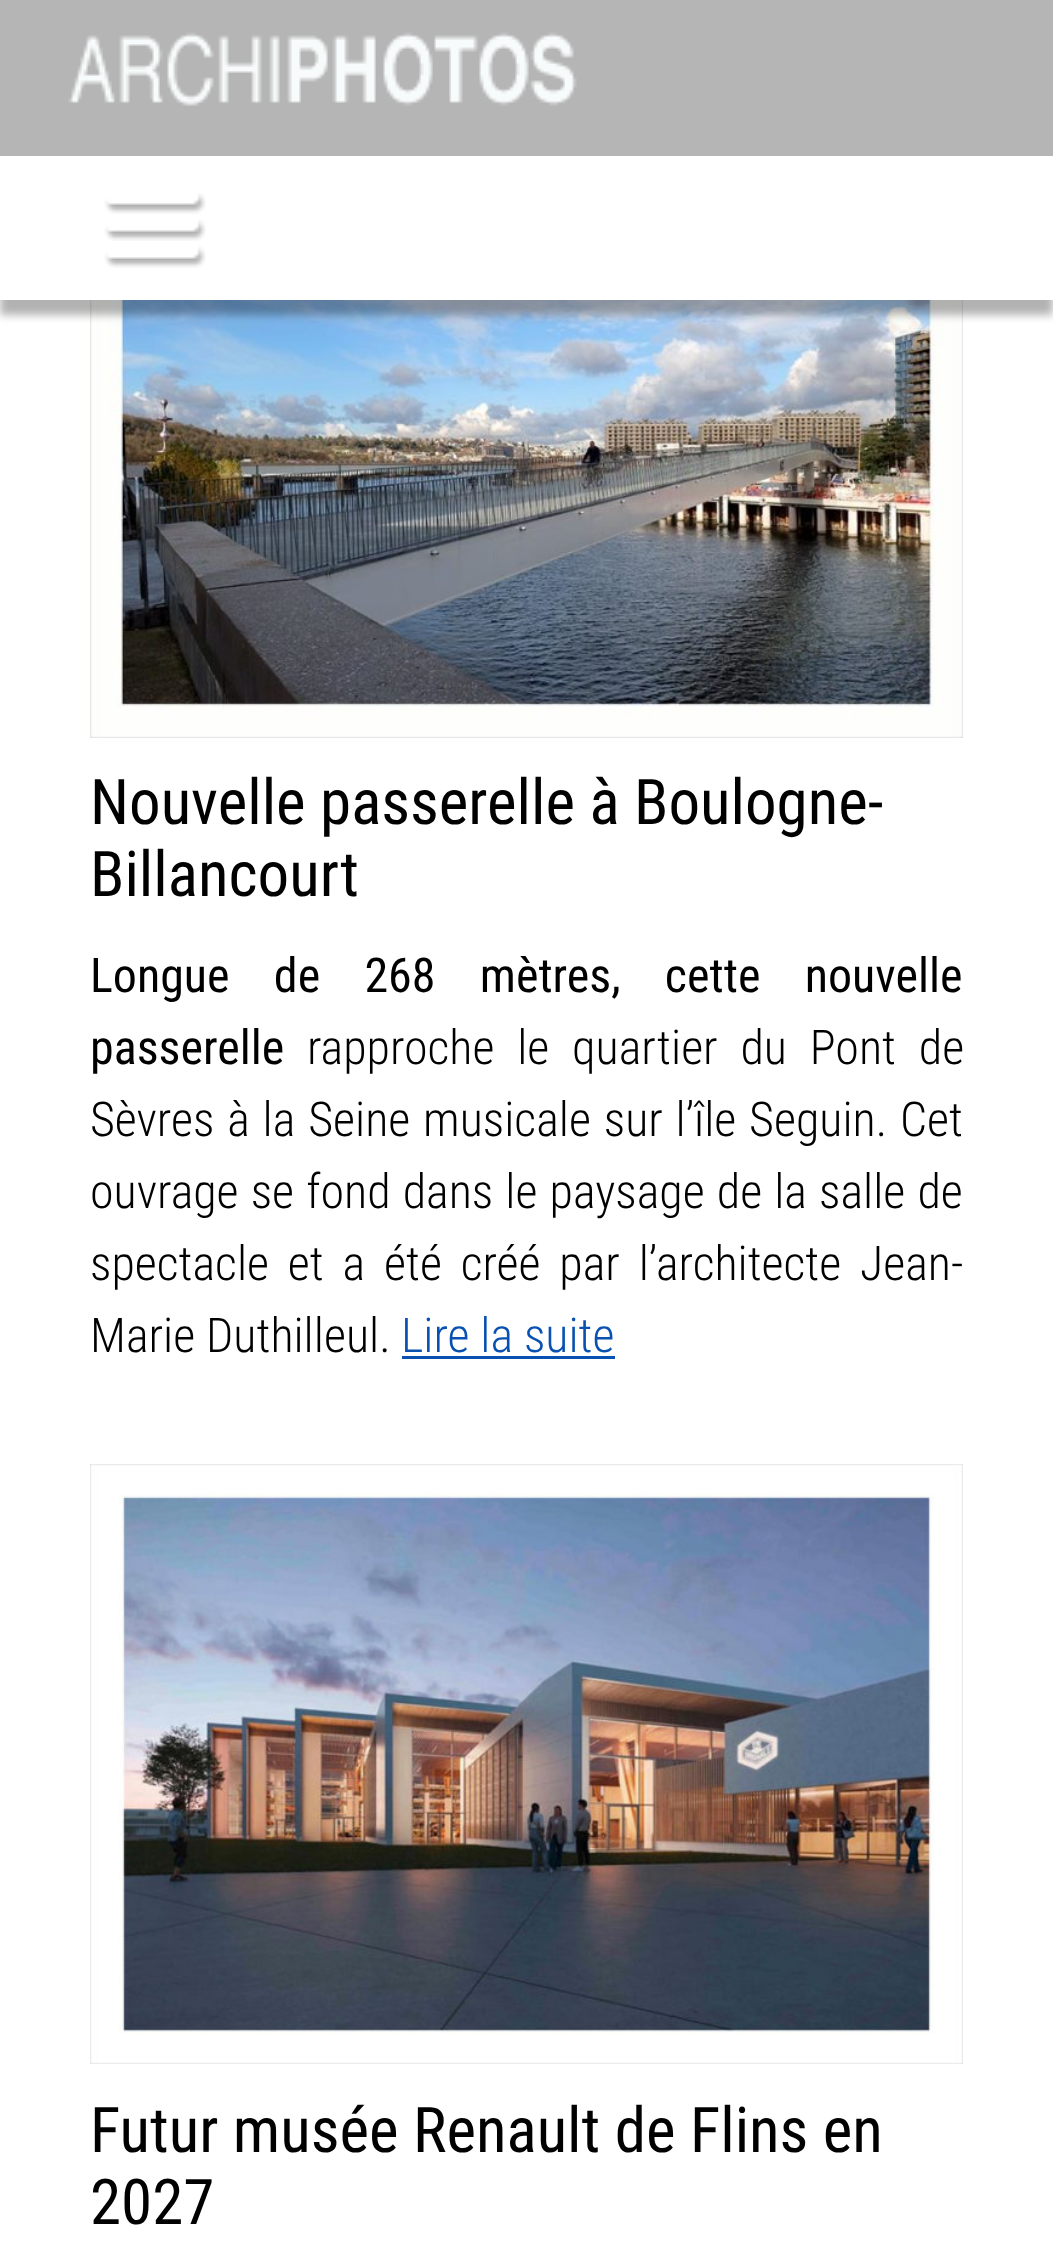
<!DOCTYPE html>
<meta charset="utf-8">
<style>body { margin: 0 } canvas { display: block }</style>
<canvas id="canvas" width="1053" height="2265"></canvas>
<img id="img1" src="img_03.png" hidden>
<img id="img2" src="img_01.png" hidden>
<img id="img3" src="img_02.png" hidden>
<img id="img4" src="img_04.png" hidden>
<script>
window.onload = function () {
	const canvas = document.getElementById("canvas");
	const ctx = canvas.getContext("2d");
	ctx.miterLimit = 4;
	ctx.fontKerning = "normal";
	function txt(s, x, y) {
		ctx.fillText(s, x, y);
	}
	function fill(x, y, w, h) {
		ctx.fillRect(x, y, w, h);
	}
	function img(id, x, y, w, h) {
		ctx.drawImage(document.getElementById(id), x, y, w, h);
	}

	ctx.fillStyle = "#FFFFFF";
	fill(0, 0, 1053, 2265);
	img("img1", 90, 300, 873, 438);
	ctx.fillStyle = "rgba(0, 0, 0, 0.3)";
	ctx.filter = "blur(4.5px)";
	ctx.beginPath();
	ctx.rect(0, -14, 1053, 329);
	ctx.fill();
	ctx.filter = "none";
	ctx.fillStyle = "#FFFFFF";
	fill(0, 156, 1053, 144);
	img("img2", 104, 193, 102, 75);
	ctx.fillStyle = "#B5B5B5";
	fill(0, 0, 1053, 156);
	img("img3", 68, 32, 509, 74);
	ctx.fillStyle = "#0951B0";
	fill(402, 1356, 213, 3);
	img("img4", 90, 1464, 873, 600);
	ctx.font = "63px Roboto Condensed";
	ctx.fillStyle = "#000000";
	txt("Nouvelle passerelle à Boulogne-", 90, 824);
	txt("Billancourt", 90, 896);
	ctx.wordSpacing = "33.25px";
	ctx.font = "48px Roboto Condensed";
	txt("Longue de 268 mètres, cette nouvelle", 90, 992);
	ctx.wordSpacing = "0px";
	txt("passerelle", 90, 1064);
	ctx.wordSpacing = "12px";
	ctx.font = "300 48px Roboto Condensed";
	txt("rapproche le quartier du Pont de", 307, 1064);
	ctx.wordSpacing = "2px";
	txt("Sèvres à la Seine musicale sur l’île Seguin. Cet", 90, 1136);
	ctx.wordSpacing = "1.25px";
	txt("ouvrage se fond dans le paysage de la salle de", 90, 1208);
	ctx.wordSpacing = "8px";
	txt("spectacle et a été créé par l’architecte Jean-", 90, 1280);
	ctx.wordSpacing = "0px";
	txt("Marie Duthilleul.", 90, 1352);
	ctx.fillStyle = "#0951B0";
	txt("Lire la suite", 401, 1352);
	ctx.font = "63px Roboto Condensed";
	ctx.fillStyle = "#000000";
	txt("Futur musée Renault de Flins en", 90, 2152);
	txt("2027", 90, 2224);
};
</script>
